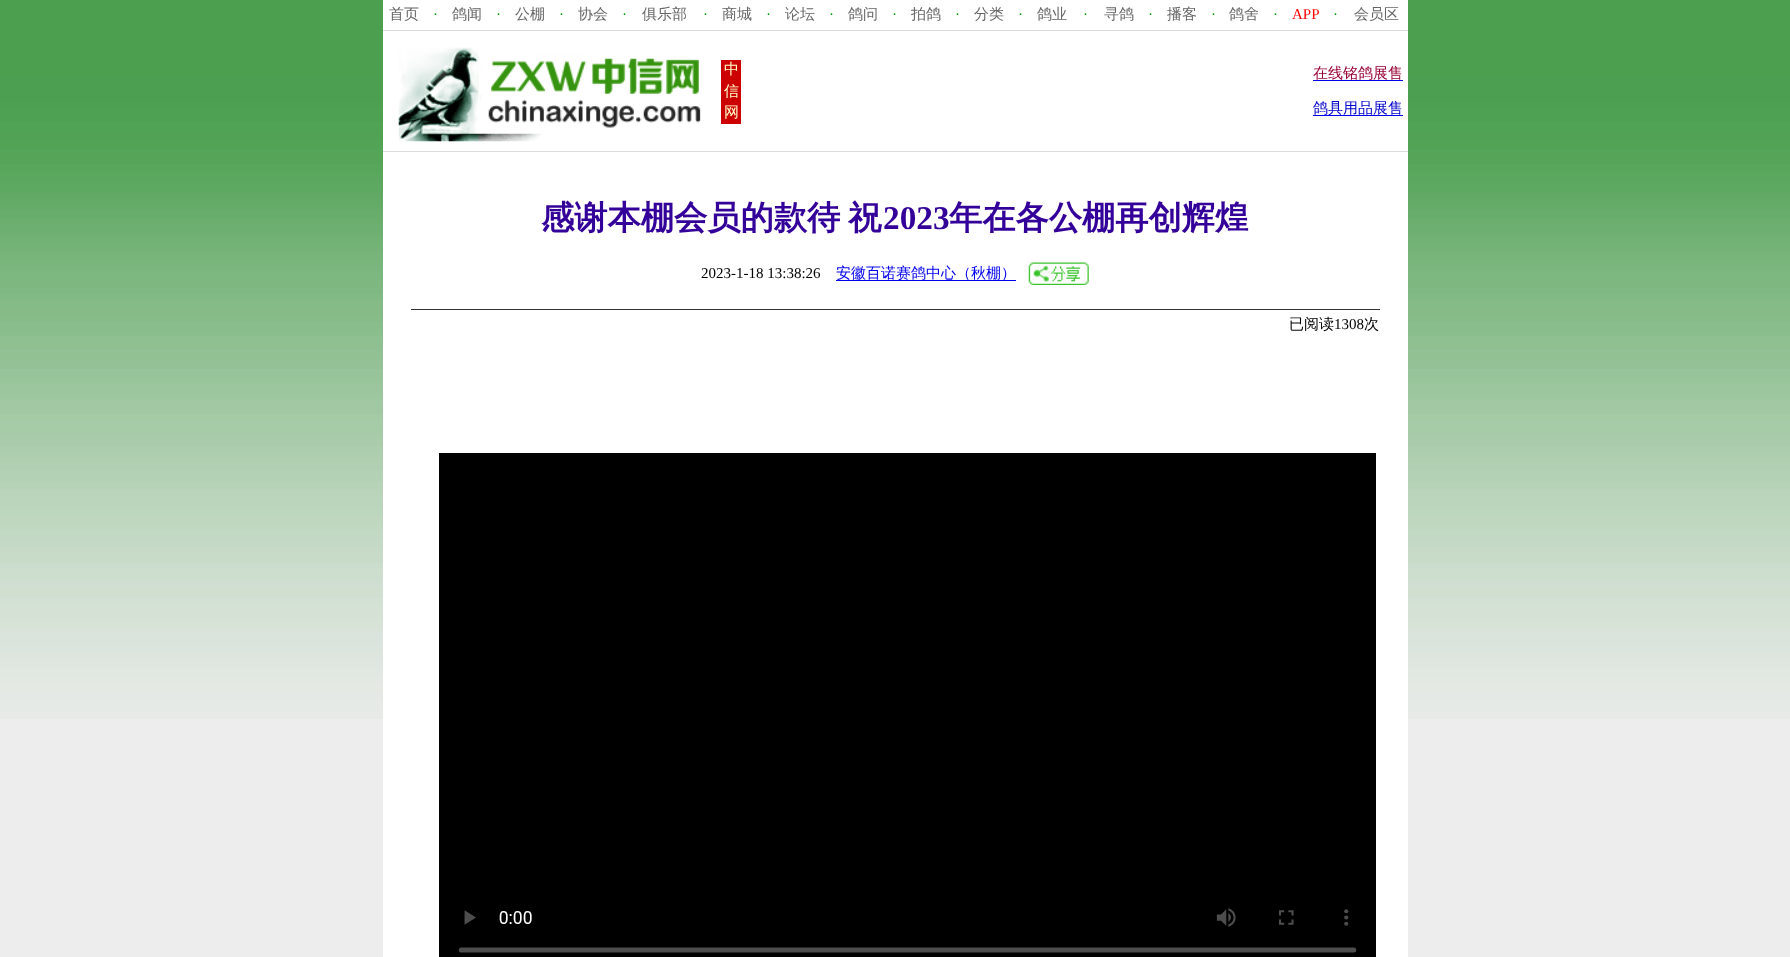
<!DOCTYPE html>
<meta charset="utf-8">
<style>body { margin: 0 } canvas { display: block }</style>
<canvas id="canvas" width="1790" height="957"></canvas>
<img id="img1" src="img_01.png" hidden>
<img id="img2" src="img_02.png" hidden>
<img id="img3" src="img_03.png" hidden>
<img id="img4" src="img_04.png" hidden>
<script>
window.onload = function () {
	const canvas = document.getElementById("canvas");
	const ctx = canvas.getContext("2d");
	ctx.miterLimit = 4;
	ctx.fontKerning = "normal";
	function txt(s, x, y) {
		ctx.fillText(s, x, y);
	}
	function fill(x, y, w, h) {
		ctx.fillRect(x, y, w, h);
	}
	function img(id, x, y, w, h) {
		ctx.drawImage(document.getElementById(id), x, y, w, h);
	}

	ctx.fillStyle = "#EDEDED";
	fill(0, 0, 1790, 957);
	img("img1", 0, 0, 1790, 719);
	ctx.fillStyle = "#FFFFFF";
	fill(383, 0, 1025, 30);
	ctx.fillStyle = "#DBDBDB";
	fill(383, 30, 1025, 1);
	ctx.fillStyle = "#FFFFFF";
	fill(383, 31, 1025, 120);
	img("img2", 398, 47, 303, 95);
	ctx.fillStyle = "#CC0000";
	fill(721, 60, 20, 64);
	ctx.fillStyle = "#0000EE";
	fill(1313, 80, 90, 1);
	fill(1313, 115, 90, 1);
	ctx.fillStyle = "#FFFFFF";
	fill(383, 152, 1025, 805);
	ctx.fillStyle = "#DBDBDB";
	fill(383, 151, 1025, 1);
	ctx.fillStyle = "#0000EE";
	fill(836, 280, 180, 1);
	img("img3", 1028, 262, 61, 23);
	ctx.fillStyle = "#333333";
	fill(411, 309, 969, 1);
	ctx.fillStyle = "#000000";
	fill(439, 453, 937, 504);
	img("img4", 458, 908, 899, 45);
	ctx.font = "500 15px WenQuanYi Zen Hei";
	ctx.fillStyle = "#666666";
	txt("首页", 389, 19);
	ctx.font = "15px Liberation Serif";
	ctx.fillStyle = "#009900";
	txt("·", 433, 19);
	ctx.font = "500 15px WenQuanYi Zen Hei";
	ctx.fillStyle = "#666666";
	txt("鸽闻", 452, 19);
	ctx.font = "15px Liberation Serif";
	ctx.fillStyle = "#009900";
	txt("·", 496, 19);
	ctx.font = "500 15px WenQuanYi Zen Hei";
	ctx.fillStyle = "#666666";
	txt("公棚", 515, 19);
	ctx.font = "15px Liberation Serif";
	ctx.fillStyle = "#009900";
	txt("·", 559, 19);
	ctx.font = "500 15px WenQuanYi Zen Hei";
	ctx.fillStyle = "#666666";
	txt("协会", 578, 19);
	ctx.font = "15px Liberation Serif";
	ctx.fillStyle = "#009900";
	txt("·", 622, 19);
	ctx.font = "500 15px WenQuanYi Zen Hei";
	ctx.fillStyle = "#666666";
	txt("俱乐部", 642, 19);
	ctx.font = "15px Liberation Serif";
	ctx.fillStyle = "#009900";
	txt("·", 703, 19);
	ctx.font = "500 15px WenQuanYi Zen Hei";
	ctx.fillStyle = "#666666";
	txt("商城", 722, 19);
	ctx.font = "15px Liberation Serif";
	ctx.fillStyle = "#009900";
	txt("·", 766, 19);
	ctx.font = "500 15px WenQuanYi Zen Hei";
	ctx.fillStyle = "#666666";
	txt("论坛", 785, 19);
	ctx.font = "15px Liberation Serif";
	ctx.fillStyle = "#009900";
	txt("·", 829, 19);
	ctx.font = "500 15px WenQuanYi Zen Hei";
	ctx.fillStyle = "#666666";
	txt("鸽问", 848, 19);
	ctx.font = "15px Liberation Serif";
	ctx.fillStyle = "#009900";
	txt("·", 892, 19);
	ctx.font = "500 15px WenQuanYi Zen Hei";
	ctx.fillStyle = "#666666";
	txt("拍鸽", 911, 19);
	ctx.font = "15px Liberation Serif";
	ctx.fillStyle = "#009900";
	txt("·", 955, 19);
	ctx.font = "500 15px WenQuanYi Zen Hei";
	ctx.fillStyle = "#666666";
	txt("分类", 974, 19);
	ctx.font = "15px Liberation Serif";
	ctx.fillStyle = "#009900";
	txt("·", 1018, 19);
	ctx.font = "500 15px WenQuanYi Zen Hei";
	ctx.fillStyle = "#666666";
	txt("鸽业", 1037, 19);
	ctx.font = "15px Liberation Serif";
	ctx.fillStyle = "#009900";
	txt("·", 1083, 19);
	ctx.font = "500 15px WenQuanYi Zen Hei";
	ctx.fillStyle = "#666666";
	txt("寻鸽", 1104, 19);
	ctx.font = "15px Liberation Serif";
	ctx.fillStyle = "#009900";
	txt("·", 1148, 19);
	ctx.font = "500 15px WenQuanYi Zen Hei";
	ctx.fillStyle = "#666666";
	txt("播客", 1167, 19);
	ctx.font = "15px Liberation Serif";
	ctx.fillStyle = "#009900";
	txt("·", 1211, 19);
	ctx.font = "500 15px WenQuanYi Zen Hei";
	ctx.fillStyle = "#666666";
	txt("鸽舍", 1229, 19);
	ctx.font = "15px Liberation Serif";
	ctx.fillStyle = "#009900";
	txt("·", 1273, 19);
	ctx.fillStyle = "#FF0000";
	txt("APP", 1292, 19);
	ctx.fillStyle = "#009900";
	txt("·", 1333, 19);
	ctx.font = "500 15px WenQuanYi Zen Hei";
	ctx.fillStyle = "#666666";
	txt("会员区", 1354, 19);
	ctx.fillStyle = "#FFFFCC";
	txt("中", 724, 74);
	txt("信", 724, 96);
	txt("网", 724, 117);
	ctx.fillStyle = "#990033";
	txt("在线铭鸽展售", 1313, 78);
	ctx.fillStyle = "#0000CC";
	txt("鸽具用品展售", 1313, 113);
	ctx.wordSpacing = "-2px";
	ctx.font = "bold 33.25px WenQuanYi Zen Hei";
	ctx.fillStyle = "#330099";
	txt("感谢本棚会员的款待 祝", 541, 229);
	ctx.wordSpacing = "0px";
	ctx.font = "bold 33.25px Liberation Serif";
	txt("2023", 883, 229);
	ctx.font = "bold 33.25px WenQuanYi Zen Hei";
	txt("年在各公棚再创辉煌", 949, 229);
	ctx.font = "15px Liberation Serif";
	ctx.fillStyle = "#000000";
	txt("2023-1-18 13:38:26", 701, 278);
	ctx.font = "500 15px WenQuanYi Zen Hei";
	ctx.fillStyle = "#0000EE";
	txt("安徽百诺赛鸽中心（秋棚）", 836, 278);
	ctx.fillStyle = "#000000";
	txt("已阅读", 1289, 329);
	ctx.font = "15px Liberation Serif";
	txt("1308", 1334, 329);
	ctx.font = "500 15px WenQuanYi Zen Hei";
	txt("次", 1364, 329);
};
</script>
